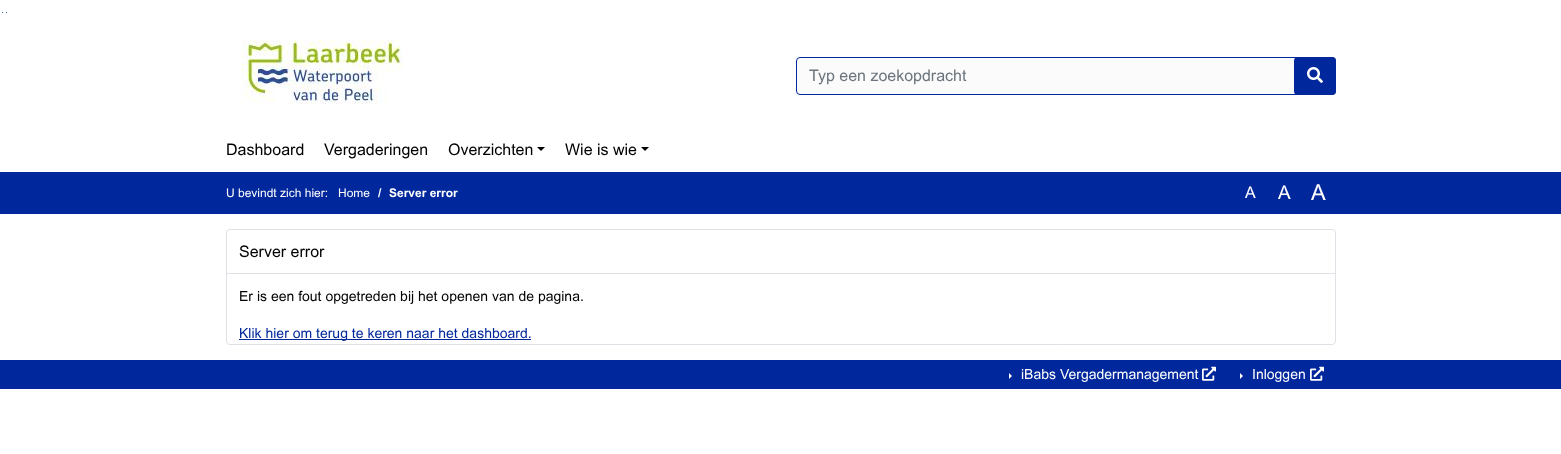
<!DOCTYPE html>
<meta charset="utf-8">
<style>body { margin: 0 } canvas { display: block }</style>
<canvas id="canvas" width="1561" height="454"></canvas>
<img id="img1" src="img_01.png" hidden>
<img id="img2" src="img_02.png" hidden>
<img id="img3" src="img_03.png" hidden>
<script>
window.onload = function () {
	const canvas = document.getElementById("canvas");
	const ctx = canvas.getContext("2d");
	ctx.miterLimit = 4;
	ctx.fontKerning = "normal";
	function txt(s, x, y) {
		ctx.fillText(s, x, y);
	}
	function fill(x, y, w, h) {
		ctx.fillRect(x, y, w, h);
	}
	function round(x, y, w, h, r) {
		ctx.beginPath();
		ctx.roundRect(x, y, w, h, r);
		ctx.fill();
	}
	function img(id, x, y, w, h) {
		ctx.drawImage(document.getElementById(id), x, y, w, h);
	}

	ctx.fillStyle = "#FFFFFF";
	fill(0, 0, 1561, 454);
	ctx.fillStyle = "#00279B";
	ctx.beginPath();
	ctx.arc(2.5, 12.5, 0.5, 0, Math.PI * 2);
	ctx.fill();
	ctx.beginPath();
	ctx.arc(6.5, 12.5, 0.5, 0, Math.PI * 2);
	ctx.fill();
	img("img1", 241, 39, 162, 66);
	ctx.fillStyle = "#FBFBFB";
	ctx.beginPath();
	ctx.roundRect(796.5, 57.5, 539, 37, 3.5);
	ctx.fill();
	ctx.strokeStyle = "#00279B";
	ctx.stroke();
	ctx.fillStyle = "#00279B";
	round(1294, 57, 42, 38, 4);
	img("img2", 1307, 67, 16, 16);
	ctx.fillStyle = "#000000";
	ctx.beginPath();
	ctx.moveTo(537, 147);
	ctx.lineTo(545, 147);
	ctx.lineTo(541, 151);
	ctx.closePath();
	ctx.fill();
	ctx.beginPath();
	ctx.moveTo(641, 147);
	ctx.lineTo(649, 147);
	ctx.lineTo(645, 151);
	ctx.closePath();
	ctx.fill();
	ctx.fillStyle = "#00279B";
	fill(0, 172, 1561, 42);
	ctx.beginPath();
	ctx.roundRect(226.5, 229.5, 1109, 115, 3.5);
	ctx.strokeStyle = "#DEE2E6";
	ctx.stroke();
	ctx.fillStyle = "#DEE2E6";
	fill(227, 273, 1108, 1);
	ctx.fillStyle = "#00279B";
	fill(239, 339, 292, 1);
	fill(0, 360, 1561, 29);
	ctx.fillStyle = "#FFFFFF";
	ctx.beginPath();
	ctx.moveTo(1009, 379);
	ctx.lineTo(1009, 373);
	ctx.lineTo(1012, 376);
	ctx.closePath();
	ctx.fill();
	img("img3", 1202, 366, 14, 15);
	ctx.beginPath();
	ctx.moveTo(1240, 379);
	ctx.lineTo(1240, 373);
	ctx.lineTo(1243, 376);
	ctx.closePath();
	ctx.fill();
	img("img3", 1310, 366, 14, 15);
	ctx.font = "16px Arial";
	ctx.fillStyle = "#6C757D";
	txt("Typ een zoekopdracht", 809, 81);
	ctx.fillStyle = "#000000";
	txt("Dashboard", 226, 155);
	txt("Vergaderingen", 324, 155);
	txt("Overzichten", 448, 155);
	txt("Wie is wie", 565, 155);
	ctx.font = "12px Arial";
	ctx.fillStyle = "#FFFFFF";
	txt("U bevindt zich hier:", 226, 197);
	txt("Home", 338, 197);
	ctx.font = "bold 12px Arial";
	txt("/", 378, 197);
	txt("Server error", 389, 197);
	ctx.font = "16px Arial";
	txt("A", 1245, 198);
	ctx.font = "19px Arial";
	txt("A", 1278, 199);
	ctx.font = "22px Arial";
	txt("A", 1311, 200);
	ctx.font = "16px Arial";
	ctx.fillStyle = "#000000";
	txt("Server error", 239, 257);
	ctx.font = "14px Arial";
	txt("Er is een fout opgetreden bij het openen van de pagina.", 239, 301);
	ctx.fillStyle = "#00279B";
	txt("Klik hier om terug te keren naar het dashboard.", 239, 338);
	ctx.fillStyle = "#FFFFFF";
	txt("iBabs Vergadermanagement", 1021, 379);
	txt("Inloggen", 1252, 379);
};
</script>
